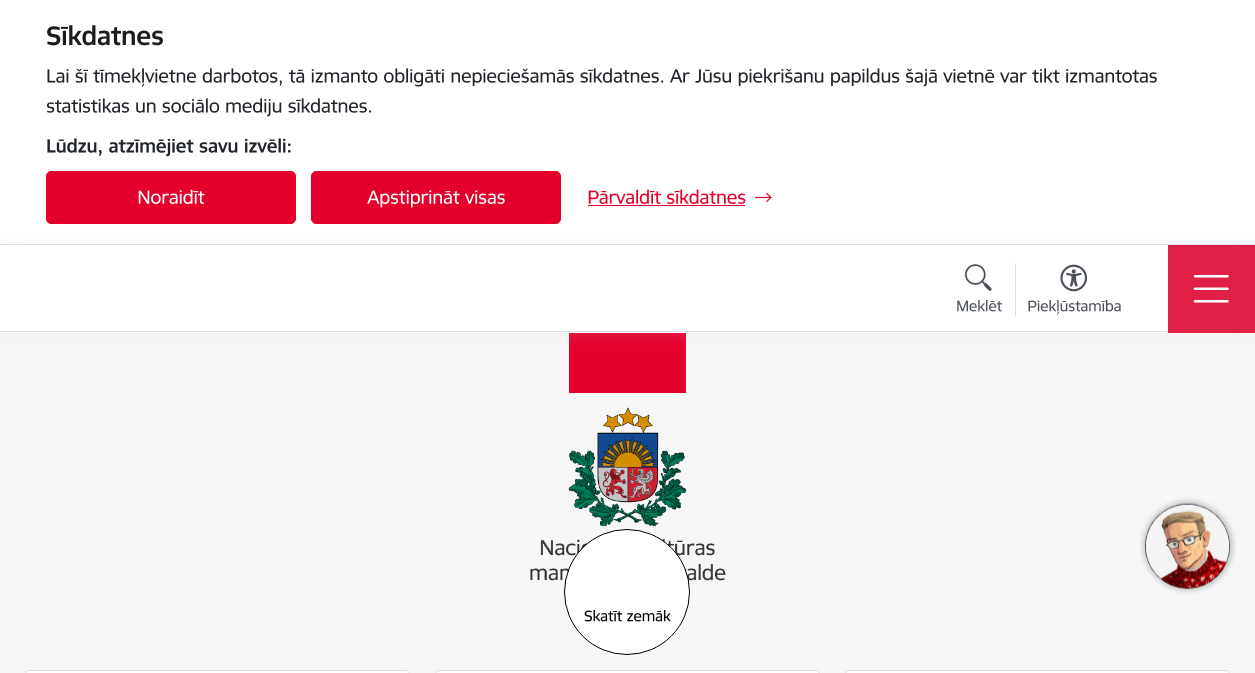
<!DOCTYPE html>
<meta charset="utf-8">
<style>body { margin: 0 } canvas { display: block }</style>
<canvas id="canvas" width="1255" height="673"></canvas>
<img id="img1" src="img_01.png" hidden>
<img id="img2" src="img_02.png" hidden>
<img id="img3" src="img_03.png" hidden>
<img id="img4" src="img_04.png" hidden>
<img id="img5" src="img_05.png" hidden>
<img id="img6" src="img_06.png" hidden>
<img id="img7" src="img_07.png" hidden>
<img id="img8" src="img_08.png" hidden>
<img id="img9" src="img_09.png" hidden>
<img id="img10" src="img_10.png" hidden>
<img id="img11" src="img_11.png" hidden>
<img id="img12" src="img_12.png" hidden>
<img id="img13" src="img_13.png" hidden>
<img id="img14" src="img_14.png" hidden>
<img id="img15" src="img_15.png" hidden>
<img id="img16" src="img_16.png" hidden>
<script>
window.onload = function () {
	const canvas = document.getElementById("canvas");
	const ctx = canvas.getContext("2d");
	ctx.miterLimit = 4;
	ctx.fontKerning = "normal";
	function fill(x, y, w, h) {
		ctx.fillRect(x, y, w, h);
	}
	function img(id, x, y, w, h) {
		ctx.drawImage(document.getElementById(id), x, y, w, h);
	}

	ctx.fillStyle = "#FFFFFF";
	fill(0, 0, 1255, 673);
	ctx.fillStyle = "#DBDEE4";
	fill(0, 244, 1255, 1);
	img("img1", 47, 25, 116, 21);
	img("img2", 47, 68, 1110, 19);
	img("img3", 46, 98, 326, 19);
	img("img4", 47, 138, 244, 19);
	ctx.fillStyle = "#E4002B";
	ctx.beginPath();
	ctx.roundRect(46.5, 171.5, 249, 52, 4.5);
	ctx.fill();
	ctx.strokeStyle = "#E4002B";
	ctx.stroke();
	img("img5", 138, 189, 67, 15);
	ctx.beginPath();
	ctx.roundRect(311.5, 171.5, 249, 52, 4.5);
	ctx.fill();
	ctx.stroke();
	img("img6", 367, 190, 138, 18);
	img("img7", 588, 189, 158, 15);
	img("img8", 755, 192, 17, 11);
	fill(588, 205, 157, 1);
	ctx.fillStyle = "#F7F7F7";
	fill(0, 333, 1255, 340);
	ctx.fillStyle = "#E4002B";
	fill(569, 333, 117, 60);
	ctx.save();
	ctx.beginPath();
	ctx.moveTo(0, 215);
	ctx.lineTo(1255, 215);
	ctx.lineTo(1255, 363);
	ctx.lineTo(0, 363);
	ctx.closePath();
	ctx.moveTo(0, 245);
	ctx.lineTo(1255, 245);
	ctx.lineTo(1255, 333);
	ctx.lineTo(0, 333);
	ctx.closePath();
	ctx.clip("evenodd");
	ctx.fillStyle = "rgba(219, 222, 228, 0.2)";
	ctx.filter = "blur(9.5px)";
	ctx.beginPath();
	ctx.rect(0, 245, 1255, 88);
	ctx.fill();
	ctx.filter = "none";
	ctx.restore();
	ctx.fillStyle = "#DBDEE4";
	fill(0, 331, 1168, 1);
	img("img9", 965, 264, 27, 27);
	img("img10", 957, 300, 46, 12);
	fill(1015, 263, 1, 53);
	img("img11", 1060, 264, 28, 28);
	img("img12", 1028, 300, 93, 15);
	ctx.fillStyle = "#E02145";
	fill(1168, 245, 87, 88);
	img("img13", 1193, 275, 36, 28);
	img("img14", 530, 407, 196, 174);
	ctx.fillStyle = "#FFFFFF";
	ctx.beginPath();
	ctx.arc(627, 592, 62.5, 0, Math.PI * 2);
	ctx.fill();
	ctx.strokeStyle = "#000000";
	ctx.stroke();
	img("img15", 584, 610, 87, 12);
	ctx.beginPath();
	ctx.roundRect(25.5, 670.5, 384, 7, 3.5);
	ctx.fill();
	ctx.strokeStyle = "#DBDEE4";
	ctx.stroke();
	ctx.beginPath();
	ctx.roundRect(435.5, 670.5, 384, 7, 3.5);
	ctx.fill();
	ctx.stroke();
	ctx.beginPath();
	ctx.roundRect(845.5, 670.5, 384, 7, 3.5);
	ctx.fill();
	ctx.stroke();
	ctx.fillStyle = "rgba(0, 0, 0, 0.2)";
	ctx.filter = "blur(2.5px)";
	ctx.beginPath();
	ctx.roundRect(1143, 501, 90, 90, 45);
	ctx.fill();
	ctx.filter = "none";
	ctx.fillStyle = "#FFFFFF";
	ctx.beginPath();
	ctx.arc(1187.5, 546.5, 42.5, 0, Math.PI * 2);
	ctx.fill();
	img("img16", 1145, 503, 85, 86);
};
</script>
